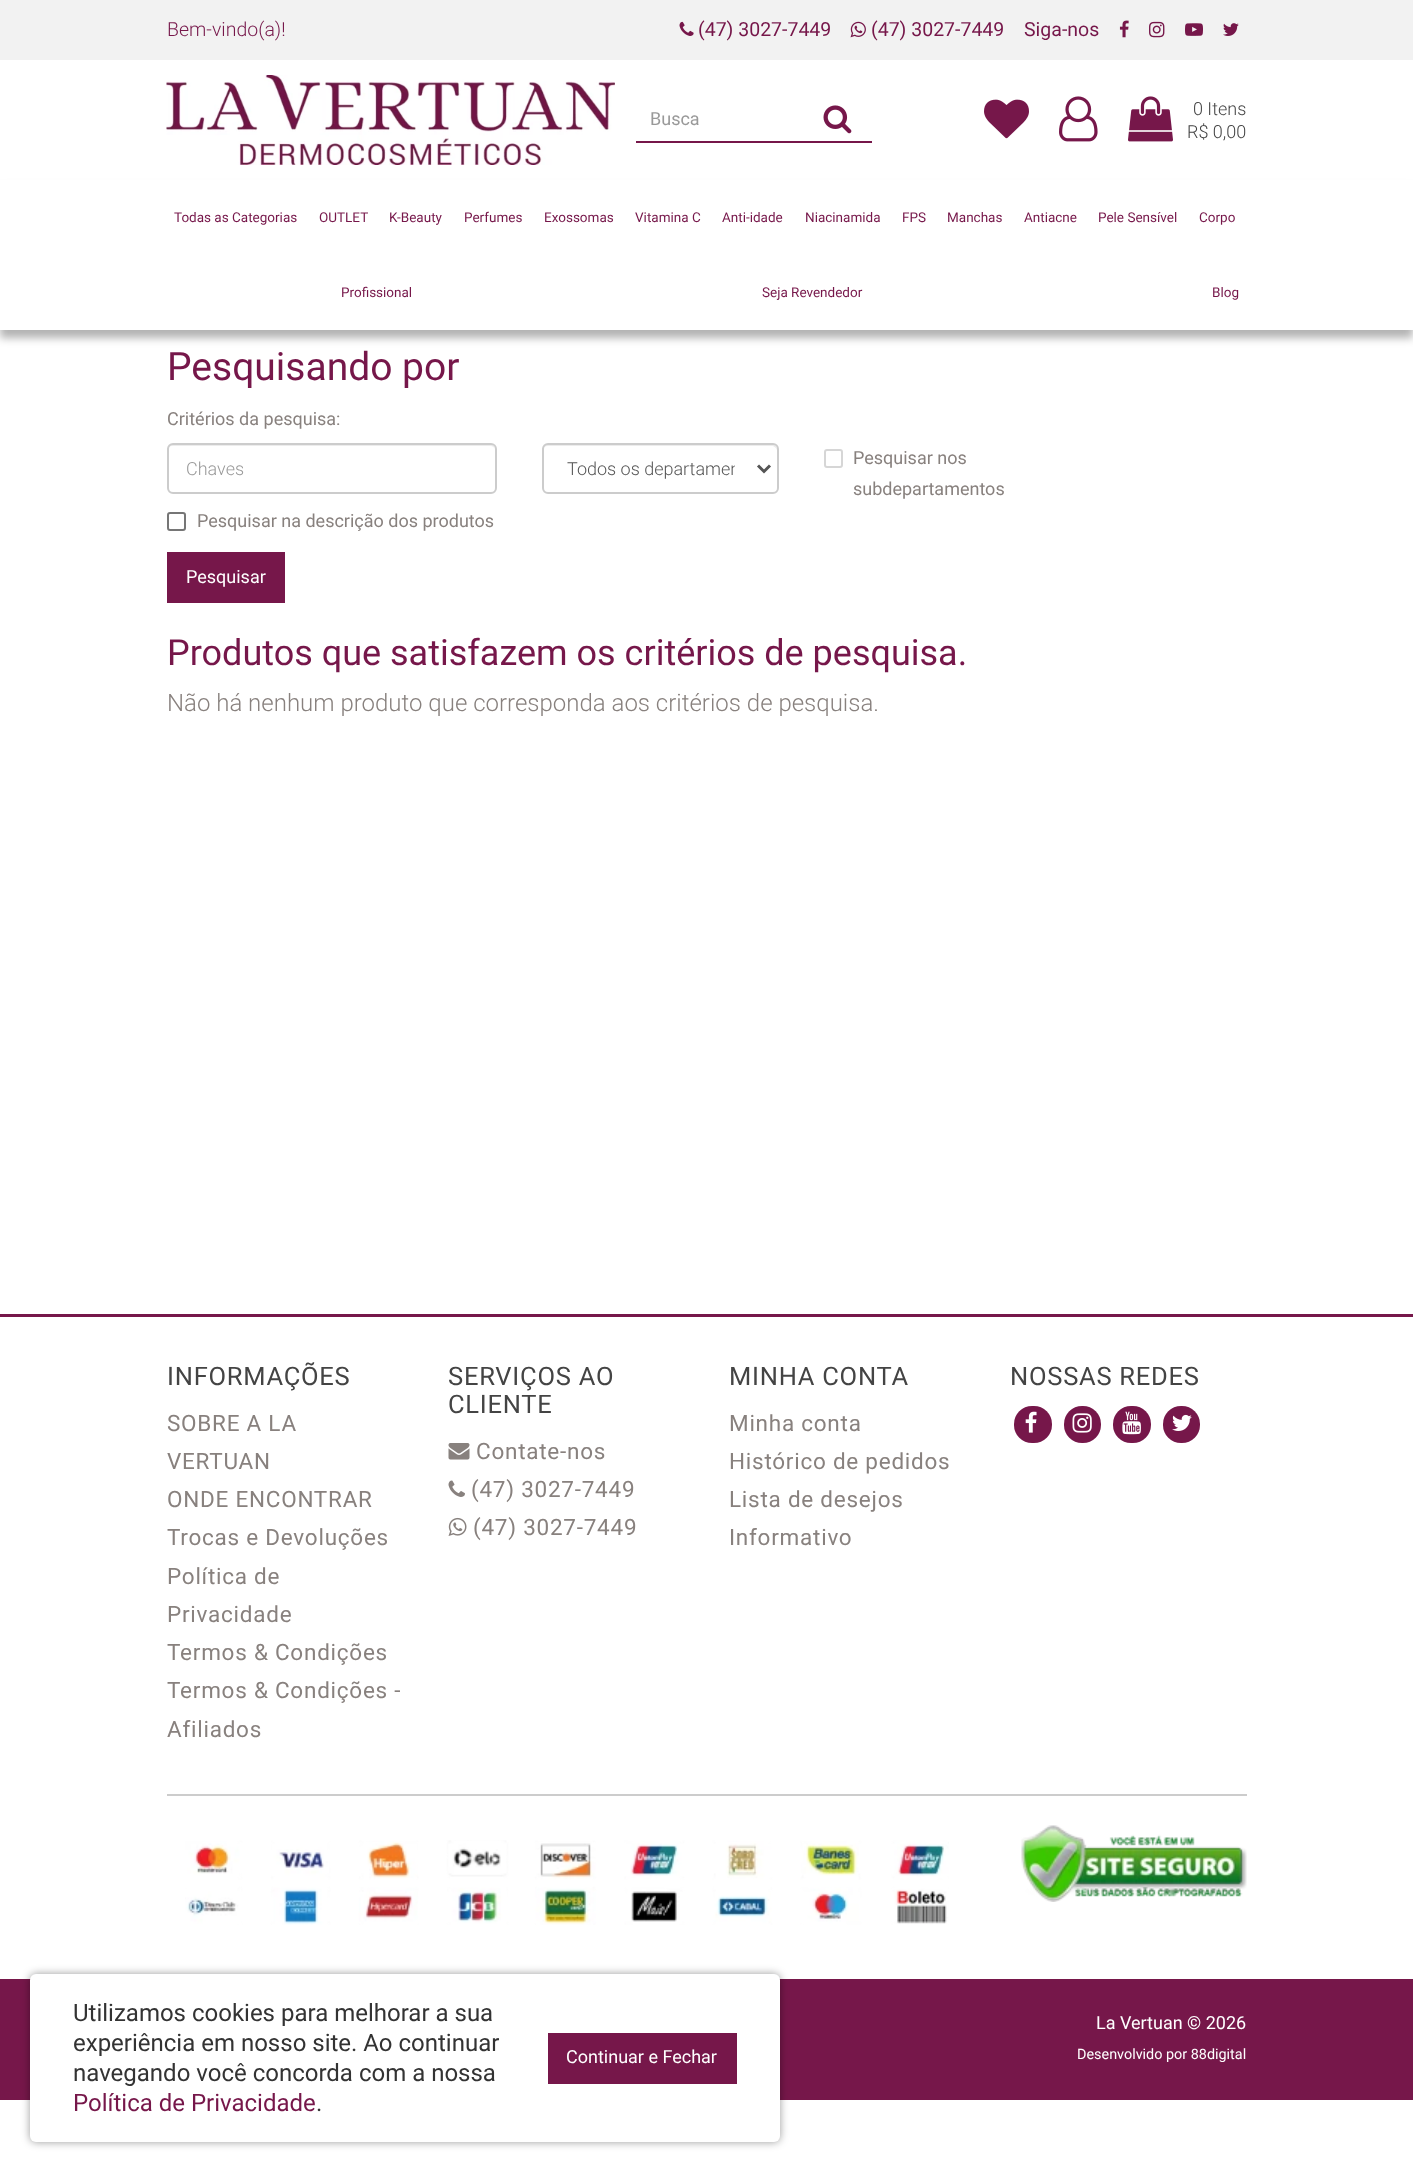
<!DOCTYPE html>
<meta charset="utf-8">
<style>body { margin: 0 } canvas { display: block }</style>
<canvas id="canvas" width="1413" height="2172"></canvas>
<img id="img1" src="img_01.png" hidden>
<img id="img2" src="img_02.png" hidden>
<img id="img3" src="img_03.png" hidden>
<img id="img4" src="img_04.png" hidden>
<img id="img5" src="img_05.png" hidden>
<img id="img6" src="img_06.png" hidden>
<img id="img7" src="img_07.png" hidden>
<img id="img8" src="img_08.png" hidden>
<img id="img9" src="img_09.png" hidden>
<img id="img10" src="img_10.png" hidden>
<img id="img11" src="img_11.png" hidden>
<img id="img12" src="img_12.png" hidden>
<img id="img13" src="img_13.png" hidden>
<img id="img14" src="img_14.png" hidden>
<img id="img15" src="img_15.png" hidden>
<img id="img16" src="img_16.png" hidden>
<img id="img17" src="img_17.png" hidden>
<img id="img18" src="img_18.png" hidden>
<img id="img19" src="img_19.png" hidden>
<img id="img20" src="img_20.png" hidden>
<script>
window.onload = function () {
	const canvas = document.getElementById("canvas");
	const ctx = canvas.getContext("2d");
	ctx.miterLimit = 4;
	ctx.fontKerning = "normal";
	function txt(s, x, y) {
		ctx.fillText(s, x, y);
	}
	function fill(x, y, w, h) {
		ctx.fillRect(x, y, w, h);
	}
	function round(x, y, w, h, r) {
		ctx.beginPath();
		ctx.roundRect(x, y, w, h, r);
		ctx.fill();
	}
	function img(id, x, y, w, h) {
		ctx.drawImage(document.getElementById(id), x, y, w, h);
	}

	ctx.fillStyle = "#FFFFFF";
	fill(0, 0, 1413, 2172);
	ctx.fillStyle = "#F2F2F2";
	fill(0, 0, 1413, 60);
	img("img1", 679, 21, 15, 15);
	img("img2", 850, 21, 16, 17);
	img("img3", 1119, 20, 10, 18);
	img("img4", 1149, 21, 16, 17);
	img("img5", 1185, 23, 18, 13);
	img("img6", 1223, 23, 16, 13);
	img("img7", 166, 75, 449, 90);
	ctx.fillStyle = "#76174A";
	fill(636, 141, 236, 2);
	img("img8", 823, 105, 29, 29);
	img("img9", 984, 99, 45, 40);
	img("img10", 1059, 96, 39, 46);
	img("img11", 1128, 96, 45, 46);
	ctx.fillStyle = "rgba(0, 0, 0, 0.3)";
	ctx.filter = "blur(4.5px)";
	ctx.beginPath();
	ctx.rect(0, 188, 1413, 150);
	ctx.fill();
	ctx.filter = "none";
	ctx.fillStyle = "#FFFFFF";
	fill(0, 180, 1413, 150);
	ctx.fillStyle = "#ECECEC";
	ctx.beginPath();
	ctx.moveTo(172, 446);
	ctx.lineTo(490, 446);
	ctx.bezierCurveTo(493, 446, 495, 448, 495, 450);
	ctx.bezierCurveTo(495, 447, 493, 444, 490, 444);
	ctx.lineTo(173, 444);
	ctx.bezierCurveTo(170, 444, 168, 447, 168, 450);
	ctx.bezierCurveTo(168, 448, 170, 446, 172, 446);
	ctx.closePath();
	ctx.fill();
	ctx.beginPath();
	ctx.roundRect(168, 444, 328, 49, 5);
	ctx.strokeStyle = "#CCCCCC";
	ctx.lineWidth = 2;
	ctx.stroke();
	ctx.beginPath();
	ctx.moveTo(548, 446);
	ctx.lineTo(773, 446);
	ctx.lineTo(776, 448);
	ctx.lineTo(777, 450);
	ctx.lineTo(777, 449);
	ctx.bezierCurveTo(777, 446, 775, 444, 772, 444);
	ctx.lineTo(548, 444);
	ctx.bezierCurveTo(545, 444, 543, 446, 543, 449);
	ctx.lineTo(543, 450);
	ctx.bezierCurveTo(543, 448, 545, 446, 548, 446);
	ctx.closePath();
	ctx.fill();
	ctx.beginPath();
	ctx.roundRect(543, 444, 235, 49, 5);
	ctx.stroke();
	ctx.beginPath();
	ctx.moveTo(758, 465.5);
	ctx.lineTo(764, 471.5);
	ctx.lineTo(770, 465.5);
	ctx.strokeStyle = "#555555";
	ctx.lineWidth = 3;
	ctx.stroke();
	ctx.beginPath();
	ctx.roundRect(825, 450, 17, 17, 2);
	ctx.strokeStyle = "#D6D6D6";
	ctx.lineWidth = 2;
	ctx.stroke();
	ctx.beginPath();
	ctx.roundRect(168, 513, 17, 17, 2);
	ctx.strokeStyle = "#767676";
	ctx.stroke();
	ctx.fillStyle = "#76174A";
	fill(167, 552, 118, 51);
	fill(0, 1314, 1413, 3);
	img("img12", 448, 1443, 22, 17);
	img("img13", 448, 1480, 17, 17);
	img("img14", 448, 1517, 19, 19);
	round(1014, 1406, 38, 37, 18);
	img("img15", 1025, 1411, 12, 22);
	round(1064, 1406, 37, 37, 18);
	img("img16", 1072, 1413, 20, 20);
	round(1113, 1406, 38, 37, 18);
	img("img17", 1122, 1411, 19, 24);
	round(1163, 1406, 37, 37, 18);
	img("img18", 1172, 1414, 20, 17);
	ctx.fillStyle = "#CCCCCC";
	fill(167, 1794, 1080, 2);
	img("img19", 185, 1840, 764, 85);
	img("img20", 1021, 1825, 226, 77);
	ctx.fillStyle = "#76174A";
	fill(0, 1979, 1413, 121);
	ctx.fillStyle = "rgba(0, 0, 0, 0.4)";
	ctx.filter = "blur(4.5px)";
	ctx.beginPath();
	ctx.roundRect(30, 1974, 750, 168, 6);
	ctx.fill();
	ctx.filter = "none";
	ctx.fillStyle = "#FFFFFF";
	round(30, 1974, 750, 168, 6);
	ctx.fillStyle = "#76174A";
	fill(548, 2033, 189, 51);
	ctx.font = "300 19.5px Roboto";
	txt("Bem-vindo(a)!", 167, 36);
	ctx.font = "19.5px Roboto";
	txt("(47) 3027-7449", 698, 36);
	txt("(47) 3027-7449", 871, 36);
	txt("Siga-nos", 1024, 36);
	ctx.font = "18px Roboto";
	ctx.fillStyle = "#999999";
	txt("Busca", 650, 125);
	ctx.font = "300 18px Roboto";
	ctx.fillStyle = "#444444";
	txt("0 Itens", 1193, 115);
	txt("R$ 0,00", 1187, 138);
	ctx.font = "13.5px Roboto";
	ctx.fillStyle = "#76174A";
	txt("Todas as Categorias", 174, 222);
	txt("OUTLET", 319, 222);
	txt("K-Beauty", 389, 222);
	txt("Perfumes", 464, 222);
	txt("Exossomas", 544, 222);
	txt("Vitamina C", 635, 222);
	txt("Anti-idade", 722, 222);
	txt("Niacinamida", 805, 222);
	txt("FPS", 902, 222);
	txt("Manchas", 947, 222);
	txt("Antiacne", 1024, 222);
	txt("Pele Sensível", 1098, 222);
	txt("Corpo", 1199, 222);
	txt("Profissional", 341, 297);
	txt("Seja Revendedor", 762, 297);
	txt("Blog", 1212, 297);
	ctx.font = "39px Roboto";
	txt("Pesquisando por", 167, 380);
	ctx.font = "18px Roboto";
	ctx.fillStyle = "#88817E";
	txt("Critérios da pesquisa:", 167, 425);
	ctx.font = "300 18px Roboto";
	ctx.fillStyle = "#999999";
	txt("Chaves", 186, 475);
	ctx.save();
	ctx.beginPath();
	ctx.rect(567, 456, 168, 24);
	ctx.clip();
	ctx.fillStyle = "#555555";
	txt("Todos os departamen", 567, 475);
	ctx.restore();
	ctx.font = "18px Roboto";
	ctx.fillStyle = "#88817E";
	txt("Pesquisar nos", 853, 464);
	txt("subdepartamentos", 853, 495);
	txt("Pesquisar na descrição dos produtos", 197, 527);
	ctx.fillStyle = "#FFFFFF";
	txt("Pesquisar", 186, 583);
	ctx.font = "36px Roboto";
	ctx.fillStyle = "#76174A";
	txt("Produtos que satisfazem os critérios de pesquisa.", 167, 665);
	ctx.font = "300 24px Roboto";
	ctx.fillStyle = "#88817E";
	txt("Não há nenhum produto que corresponda aos critérios de pesquisa.", 167, 711);
	ctx.letterSpacing = "0.75px";
	ctx.font = "25.5px Roboto";
	ctx.fillStyle = "#444444";
	txt("INFORMAÇÕES", 167, 1385);
	ctx.font = "22.5px Roboto";
	ctx.fillStyle = "#88817E";
	txt("SOBRE A LA", 167, 1431);
	txt("VERTUAN", 167, 1469);
	txt("ONDE ENCONTRAR", 167, 1507);
	txt("Trocas e Devoluções", 167, 1545);
	txt("Política de", 167, 1584);
	txt("Privacidade", 167, 1622);
	txt("Termos & Condições", 167, 1660);
	txt("Termos & Condições -", 167, 1698);
	txt("Afiliados", 167, 1737);
	ctx.font = "25.5px Roboto";
	ctx.fillStyle = "#444444";
	txt("SERVIÇOS AO", 448, 1385);
	txt("CLIENTE", 448, 1413);
	ctx.font = "22.5px Roboto";
	ctx.fillStyle = "#88817E";
	txt("Contate-nos", 476, 1459);
	txt("(47) 3027-7449", 471, 1497);
	txt("(47) 3027-7449", 473, 1535);
	ctx.font = "25.5px Roboto";
	ctx.fillStyle = "#444444";
	txt("MINHA CONTA", 729, 1385);
	ctx.font = "22.5px Roboto";
	ctx.fillStyle = "#88817E";
	txt("Minha conta", 729, 1431);
	txt("Histórico de pedidos", 729, 1469);
	txt("Lista de desejos", 729, 1507);
	txt("Informativo", 729, 1545);
	ctx.font = "25.5px Roboto";
	ctx.fillStyle = "#444444";
	txt("NOSSAS REDES", 1010, 1385);
	ctx.letterSpacing = "0px";
	ctx.font = "24px Roboto";
	ctx.fillStyle = "#333333";
	txt("Utilizamos cookies para melhorar a sua", 73, 2021);
	txt("experiência em nosso site. Ao continuar", 73, 2051);
	txt("navegando você concorda com a nossa", 73, 2081);
	ctx.fillStyle = "#76174A";
	txt("Política de Privacidade", 73, 2111);
	ctx.fillStyle = "#333333";
	txt(".", 316, 2111);
	ctx.font = "18px Roboto";
	ctx.fillStyle = "#FFFFFF";
	txt("Continuar e Fechar", 566, 2063);
	txt("La Vertuan © 2026", 1096, 2029);
	ctx.font = "14.4px Roboto";
	txt("Desenvolvido por 88digital", 1077, 2059);
};
</script>
